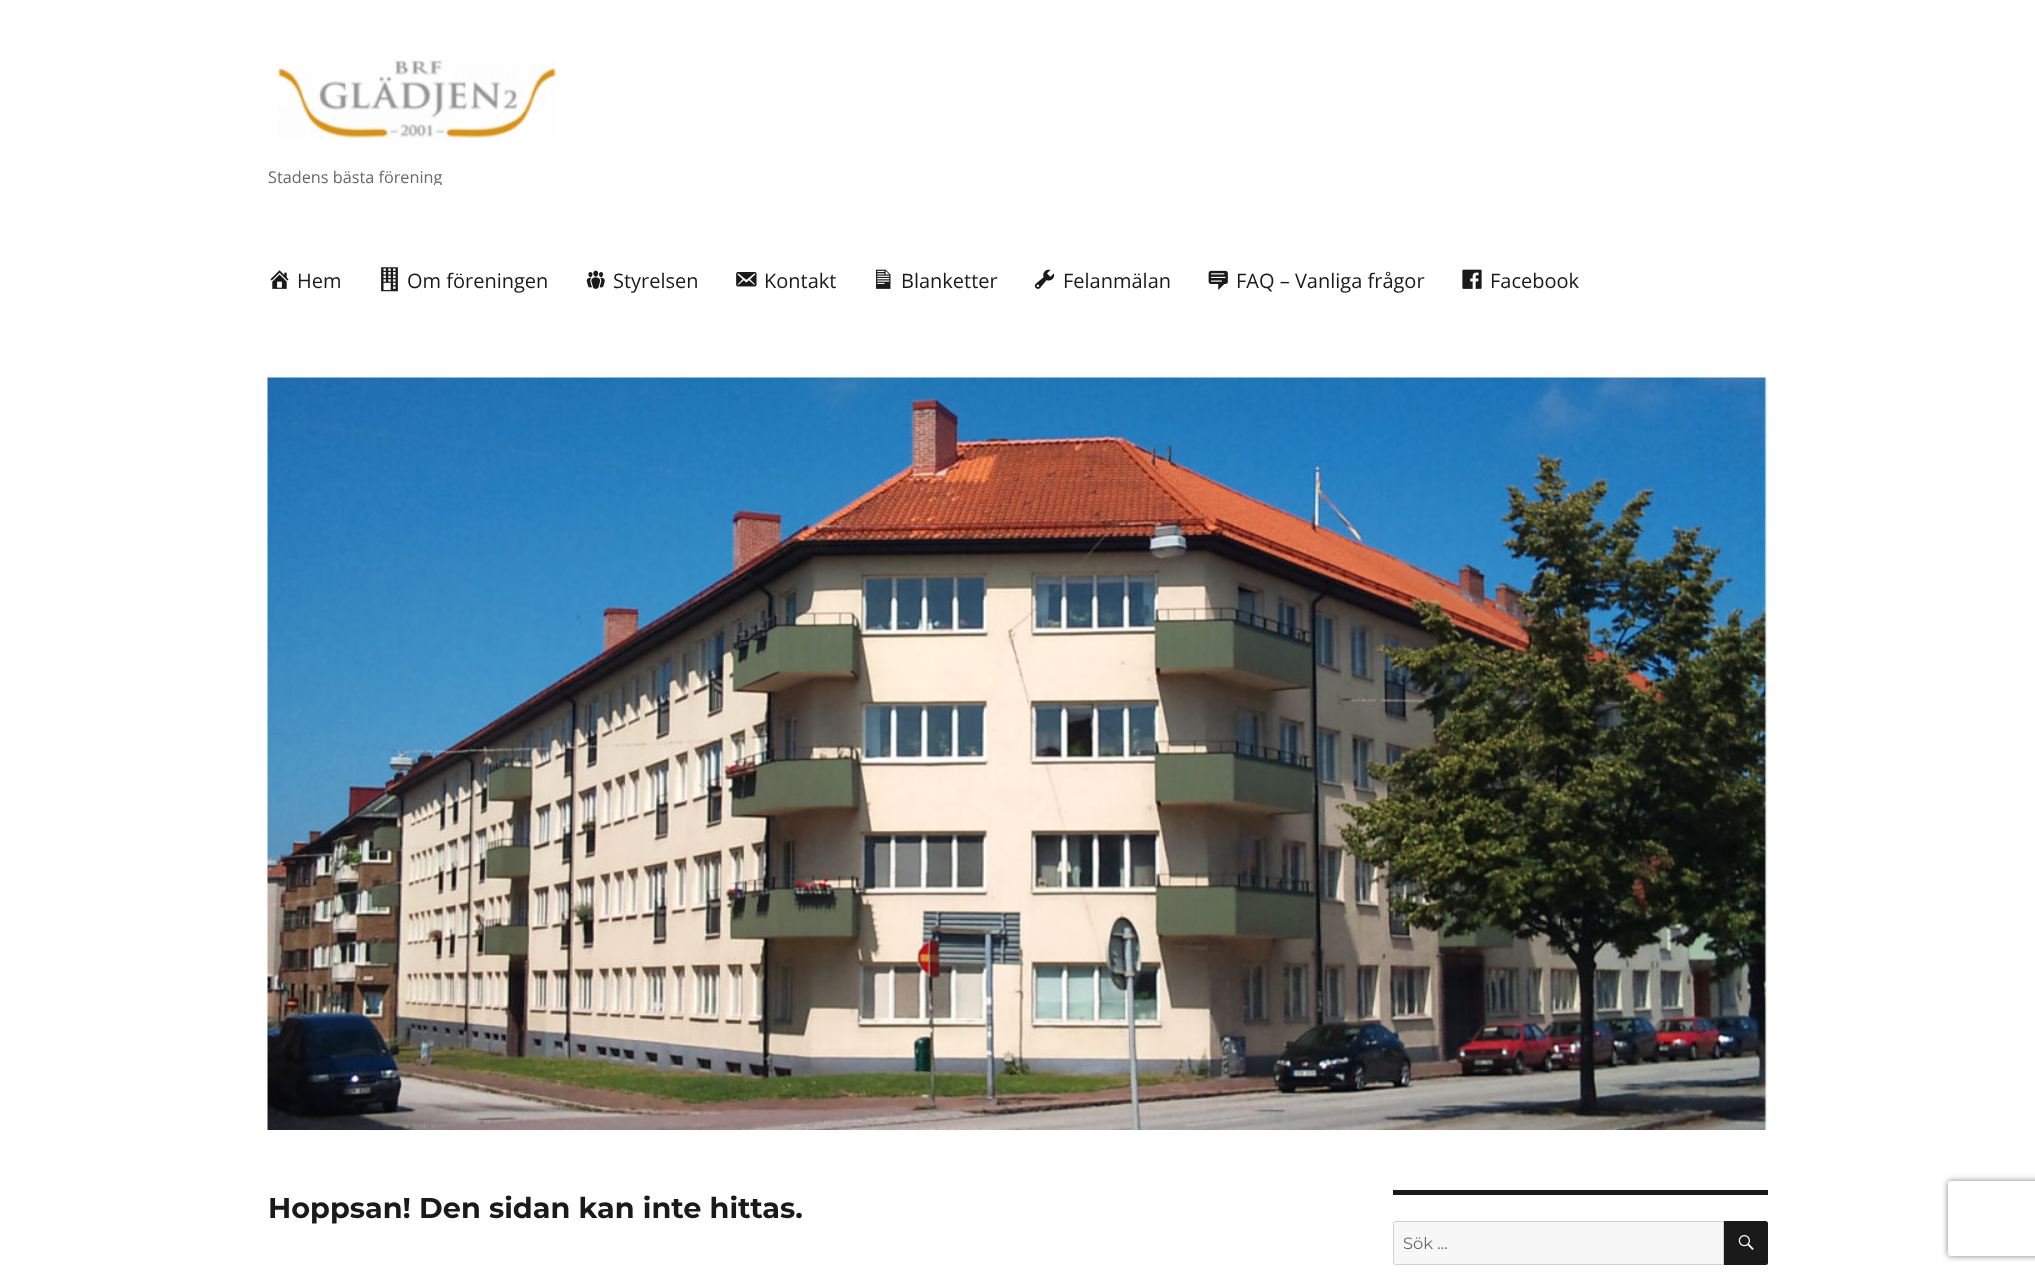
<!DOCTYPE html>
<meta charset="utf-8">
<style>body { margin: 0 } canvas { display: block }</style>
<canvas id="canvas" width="2035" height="1273"></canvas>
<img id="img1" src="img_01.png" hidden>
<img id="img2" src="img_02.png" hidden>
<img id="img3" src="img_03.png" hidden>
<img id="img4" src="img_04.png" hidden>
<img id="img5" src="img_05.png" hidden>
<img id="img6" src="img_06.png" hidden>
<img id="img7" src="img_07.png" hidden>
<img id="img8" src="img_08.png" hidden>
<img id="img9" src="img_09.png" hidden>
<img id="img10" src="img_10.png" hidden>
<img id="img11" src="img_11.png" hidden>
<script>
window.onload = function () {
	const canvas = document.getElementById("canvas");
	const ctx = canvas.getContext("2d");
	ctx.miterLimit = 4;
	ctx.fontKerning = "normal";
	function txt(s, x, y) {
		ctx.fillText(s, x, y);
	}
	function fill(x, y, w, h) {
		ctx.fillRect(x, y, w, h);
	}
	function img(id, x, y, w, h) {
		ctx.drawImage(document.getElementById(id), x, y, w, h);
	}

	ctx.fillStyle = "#FFFFFF";
	fill(0, 0, 2035, 1273);
	img("img1", 277, 60, 280, 78);
	img("img2", 270, 270, 19, 19);
	img("img3", 381, 267, 17, 25);
	img("img4", 586, 270, 19, 19);
	img("img5", 736, 272, 21, 15);
	img("img6", 876, 269, 15, 20);
	img("img7", 1034, 269, 21, 20);
	img("img8", 1208, 270, 20, 20);
	img("img9", 1462, 269, 20, 20);
	img("img10", 267, 377, 1501, 753);
	ctx.fillStyle = "#1A1A1A";
	fill(1393, 1190, 375, 5);
	ctx.fillStyle = "#F7F7F7";
	ctx.beginPath();
	ctx.roundRect(1393.5, 1221.5, 330, 43, [2, 0, 0, 2]);
	ctx.fill();
	ctx.strokeStyle = "#D1D1D1";
	ctx.stroke();
	ctx.fillStyle = "#1A1A1A";
	ctx.beginPath();
	ctx.roundRect(1724, 1221, 44, 44, [0, 2.5, 2.5, 0]);
	ctx.fill();
	img("img11", 1738, 1235, 16, 15);
	ctx.save();
	ctx.beginPath();
	ctx.moveTo(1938, 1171);
	ctx.lineTo(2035, 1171);
	ctx.lineTo(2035, 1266);
	ctx.lineTo(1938, 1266);
	ctx.closePath();
	ctx.moveTo(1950.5, 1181);
	ctx.lineTo(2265.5, 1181);
	ctx.bezierCurveTo(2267, 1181, 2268, 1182, 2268, 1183.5);
	ctx.lineTo(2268, 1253.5);
	ctx.bezierCurveTo(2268, 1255, 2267, 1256, 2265.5, 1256);
	ctx.lineTo(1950.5, 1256);
	ctx.bezierCurveTo(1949, 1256, 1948, 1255, 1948, 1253.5);
	ctx.lineTo(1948, 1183.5);
	ctx.bezierCurveTo(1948, 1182, 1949, 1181, 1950.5, 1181);
	ctx.closePath();
	ctx.clip("evenodd");
	ctx.fillStyle = "#808080";
	ctx.filter = "blur(3px)";
	ctx.beginPath();
	ctx.roundRect(1948, 1181, 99, 75, 2.5);
	ctx.fill();
	ctx.filter = "none";
	ctx.restore();
	ctx.save();
	ctx.beginPath();
	ctx.rect(268, 60, 300, 125);
	ctx.clip();
	ctx.font = "16.25px Open Sans";
	ctx.fillStyle = "#686868";
	txt("Stadens bästa förening", 268, 183);
	ctx.restore();
	ctx.font = "20px Open Sans";
	txt("Hem", 297, 288);
	txt("Om föreningen", 407, 288);
	txt("Styrelsen", 613, 288);
	txt("Kontakt", 764, 288);
	txt("Blanketter", 901, 288);
	txt("Felanmälan", 1063, 288);
	txt("FAQ – Vanliga frågor", 1236, 288);
	txt("Facebook", 1490, 288);
	ctx.font = "bold 28.75px Montserrat";
	txt("Hoppsan! Den sidan kan inte hittas.", 268, 1218);
	ctx.font = "16.25px Montserrat";
	ctx.fillStyle = "#686868";
	txt("Sök …", 1403, 1249);
};
</script>
